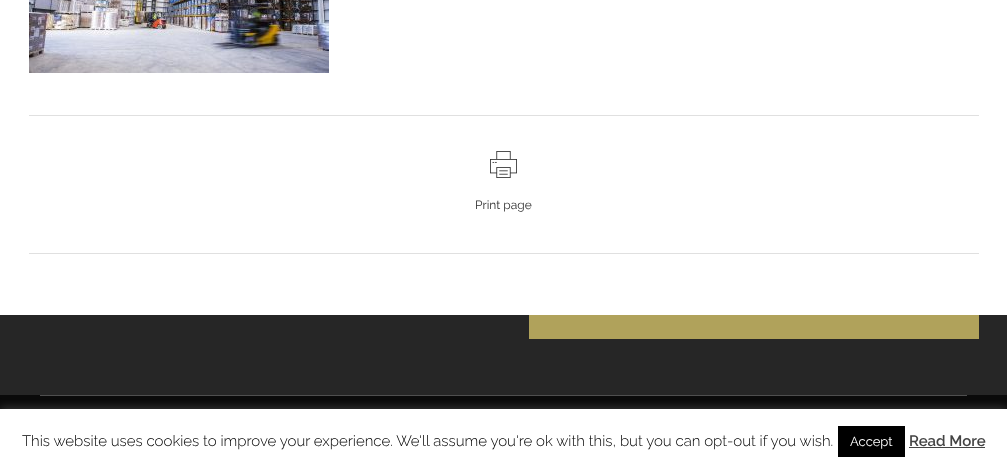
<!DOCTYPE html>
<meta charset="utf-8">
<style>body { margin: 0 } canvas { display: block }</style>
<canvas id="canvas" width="1007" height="469"></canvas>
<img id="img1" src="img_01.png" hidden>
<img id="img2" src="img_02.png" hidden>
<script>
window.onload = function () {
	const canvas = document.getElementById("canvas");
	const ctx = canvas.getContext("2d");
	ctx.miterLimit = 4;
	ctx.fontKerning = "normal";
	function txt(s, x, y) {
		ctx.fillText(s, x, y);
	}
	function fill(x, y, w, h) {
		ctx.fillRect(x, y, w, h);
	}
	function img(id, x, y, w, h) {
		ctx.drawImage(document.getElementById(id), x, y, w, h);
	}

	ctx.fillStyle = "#0A0A0A";
	fill(0, 0, 1007, 469);
	ctx.fillStyle = "#FFFFFF";
	fill(0, 0, 1007, 315);
	img("img1", 29, 0, 300, 73);
	ctx.fillStyle = "#E0E0E0";
	fill(29, 115, 950, 1);
	fill(29, 253, 950, 1);
	img("img2", 490, 151, 27, 27);
	ctx.fillStyle = "#262626";
	fill(0, 315, 1007, 80);
	ctx.fillStyle = "#B0A25B";
	fill(529, 315, 450, 24);
	ctx.fillStyle = "#4F4F4F";
	fill(40, 395, 927, 1);
	ctx.fillStyle = "rgba(172, 171, 171, 0.3)";
	ctx.filter = "blur(5px)";
	ctx.beginPath();
	ctx.rect(0, 408, 1007, 60);
	ctx.fill();
	ctx.filter = "none";
	ctx.fillStyle = "#FFFFFF";
	fill(0, 409, 1007, 60);
	ctx.fillStyle = "#000000";
	fill(838, 426, 67, 31);
	ctx.fillStyle = "#444444";
	fill(909, 447, 76, 1);
	ctx.font = "12px Raleway";
	ctx.fillStyle = "#303030";
	txt("Print page", 475, 209);
	ctx.font = "300 15px Raleway";
	ctx.fillStyle = "#000000";
	txt("This website uses cookies to improve your experience. We'll assume you're ok with this, but you can opt-out if you wish.", 22, 446);
	ctx.font = "13px Raleway";
	ctx.fillStyle = "#FFFFFF";
	txt("Accept", 850, 446);
	ctx.font = "600 15px Raleway";
	ctx.fillStyle = "#444444";
	txt("Read More", 909, 446);
};
</script>
